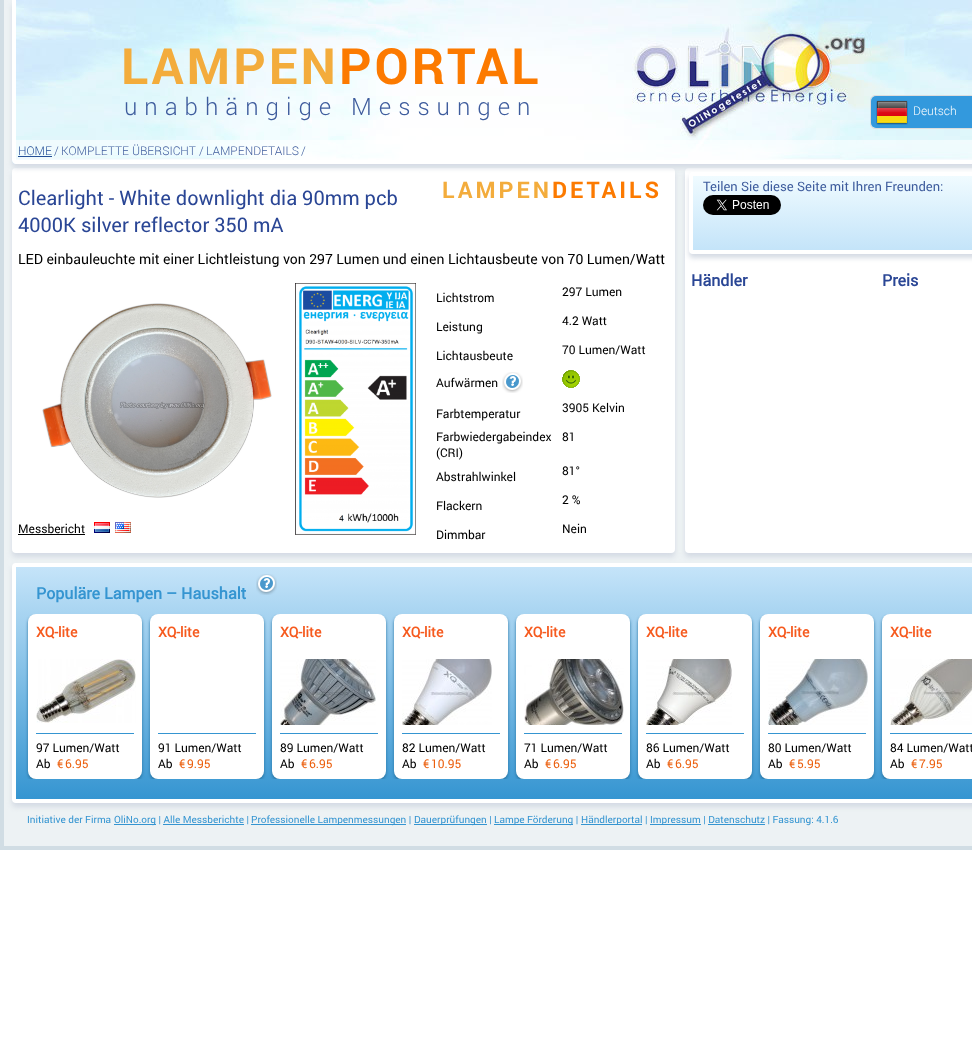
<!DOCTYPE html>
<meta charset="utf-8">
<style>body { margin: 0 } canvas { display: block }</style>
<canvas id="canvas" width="972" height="1041"></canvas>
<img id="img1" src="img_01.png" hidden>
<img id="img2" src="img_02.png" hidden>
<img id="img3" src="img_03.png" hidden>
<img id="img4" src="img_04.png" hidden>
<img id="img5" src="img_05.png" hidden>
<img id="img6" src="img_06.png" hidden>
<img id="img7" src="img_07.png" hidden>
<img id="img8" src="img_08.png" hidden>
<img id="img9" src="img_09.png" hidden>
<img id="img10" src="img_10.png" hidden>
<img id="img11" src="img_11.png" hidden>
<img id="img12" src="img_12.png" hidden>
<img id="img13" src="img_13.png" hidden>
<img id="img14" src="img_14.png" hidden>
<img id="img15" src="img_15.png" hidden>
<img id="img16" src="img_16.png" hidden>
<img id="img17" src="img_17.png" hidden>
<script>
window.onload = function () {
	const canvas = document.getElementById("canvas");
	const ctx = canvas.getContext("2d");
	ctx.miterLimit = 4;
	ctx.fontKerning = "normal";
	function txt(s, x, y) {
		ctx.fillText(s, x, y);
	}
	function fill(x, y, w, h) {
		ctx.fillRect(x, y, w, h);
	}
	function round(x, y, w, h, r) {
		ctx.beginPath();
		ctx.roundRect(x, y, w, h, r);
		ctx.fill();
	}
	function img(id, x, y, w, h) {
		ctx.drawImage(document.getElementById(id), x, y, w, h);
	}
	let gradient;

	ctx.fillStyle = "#FFFFFF";
	fill(0, 0, 972, 1041);
	ctx.fillStyle = "#EDF2F4";
	fill(4, 0, 968, 846);
	ctx.fillStyle = "#D1DDE4";
	fill(0, 846, 972, 4);
	fill(0, 0, 4, 850);
	ctx.fillStyle = "#D5DBE4";
	ctx.filter = "blur(2.5px)";
	ctx.beginPath();
	ctx.roundRect(12, 172, 663, 385, 4);
	ctx.fill();
	ctx.filter = "none";
	ctx.fillStyle = "#FFFFFF";
	ctx.beginPath();
	ctx.roundRect(14, 170, 659, 381, 2);
	ctx.fill();
	ctx.strokeStyle = "#FFFFFF";
	ctx.lineWidth = 4;
	ctx.stroke();
	ctx.fillStyle = "#D5DBE4";
	ctx.filter = "blur(2.5px)";
	ctx.beginPath();
	ctx.roundRect(685, 172, 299, 385, 4);
	ctx.fill();
	ctx.filter = "none";
	ctx.fillStyle = "#FFFFFF";
	ctx.beginPath();
	ctx.roundRect(687, 170, 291, 381, 2);
	ctx.fill();
	ctx.stroke();
	ctx.fillStyle = "#D5DBE4";
	ctx.filter = "blur(2.5px)";
	ctx.beginPath();
	ctx.roundRect(12, 4, 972, 164, 4);
	ctx.fill();
	ctx.filter = "none";
	img("img1", 12, 0, 960, 164);
	ctx.fillStyle = "#FFFFFF";
	ctx.beginPath();
	ctx.moveTo(12, 0);
	ctx.lineTo(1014, 0);
	ctx.lineTo(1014, 160);
	ctx.bezierCurveTo(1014, 162, 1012, 164, 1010, 164);
	ctx.lineTo(16, 164);
	ctx.bezierCurveTo(14, 164, 12, 162, 12, 160);
	ctx.closePath();
	ctx.moveTo(16, 0);
	ctx.lineTo(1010, 0);
	ctx.lineTo(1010, 160);
	ctx.lineTo(16, 160);
	ctx.closePath();
	ctx.fill("evenodd");
	ctx.beginPath();
	ctx.roundRect(870.5, 95.5, 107, 33, 4.5);
	ctx.strokeStyle = "#DDDDDD";
	ctx.lineWidth = 1;
	ctx.stroke();
	ctx.fillStyle = "#3399DD";
	round(871, 96, 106, 32, 5);
	img("img2", 876, 100, 32, 25);
	ctx.fillStyle = "rgba(255, 255, 255, 0.5)";
	fill(16, 140, 956, 20);
	ctx.fillStyle = "#244F98";
	fill(18, 156, 34, 1);
	img("img3", 295, 283, 121, 252);
	img("img4", 42, 303, 230, 195);
	img("img5", 502, 372, 21, 21);
	img("img6", 562, 370, 18, 18);
	ctx.fillStyle = "#000000";
	fill(18, 534, 67, 1);
	img("img7", 94, 522, 16, 11);
	img("img8", 115, 522, 16, 11);
	ctx.fillStyle = "#D5DBE4";
	ctx.filter = "blur(2.5px)";
	ctx.beginPath();
	ctx.roundRect(689, 176, 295, 82, 4);
	ctx.fill();
	ctx.filter = "none";
	gradient = ctx.createLinearGradient(849, 176, 849, 250);
	gradient.addColorStop(0, "#F0FBFF");
	gradient.addColorStop(1, "#C4E4F9");
	ctx.fillStyle = gradient;
	fill(693, 176, 279, 74);
	ctx.beginPath();
	ctx.roundRect(691, 174, 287, 78, 2);
	ctx.strokeStyle = "#FFFFFF";
	ctx.lineWidth = 4;
	ctx.stroke();
	img("img9", 703, 195, 78, 20);
	ctx.fillStyle = "#D5DBE4";
	ctx.filter = "blur(2.5px)";
	ctx.beginPath();
	ctx.roundRect(12, 567, 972, 240, 4);
	ctx.fill();
	ctx.filter = "none";
	gradient = ctx.createLinearGradient(513, 567, 513, 799);
	gradient.addColorStop(0, "#C5E4F9");
	gradient.addColorStop(1, "#3595D1");
	ctx.fillStyle = gradient;
	fill(16, 567, 956, 232);
	ctx.beginPath();
	ctx.roundRect(14, 565, 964, 236, 2);
	ctx.stroke();
	img("img10", 256, 574, 21, 21);
	ctx.save();
	ctx.beginPath();
	ctx.rect(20, 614, 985, 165);
	ctx.clip();
	ctx.fillStyle = "#2974A2";
	ctx.filter = "blur(1.5px)";
	ctx.beginPath();
	ctx.roundRect(28, 616, 114, 165, 8);
	ctx.fill();
	ctx.filter = "none";
	ctx.restore();
	ctx.fillStyle = "#FFFFFF";
	round(28, 614, 114, 165, 8);
	img("img11", 36, 659, 100, 64);
	ctx.fillStyle = "#3595D1";
	fill(36, 733, 98, 1);
	ctx.save();
	ctx.beginPath();
	ctx.rect(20, 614, 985, 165);
	ctx.clip();
	ctx.fillStyle = "#2974A2";
	ctx.filter = "blur(1.5px)";
	ctx.beginPath();
	ctx.roundRect(150, 616, 114, 165, 8);
	ctx.fill();
	ctx.filter = "none";
	ctx.restore();
	ctx.fillStyle = "#FFFFFF";
	round(150, 614, 114, 165, 8);
	ctx.fillStyle = "#3595D1";
	fill(158, 733, 98, 1);
	ctx.save();
	ctx.beginPath();
	ctx.rect(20, 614, 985, 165);
	ctx.clip();
	ctx.fillStyle = "#2974A2";
	ctx.filter = "blur(1.5px)";
	ctx.beginPath();
	ctx.roundRect(272, 616, 114, 165, 8);
	ctx.fill();
	ctx.filter = "none";
	ctx.restore();
	ctx.fillStyle = "#FFFFFF";
	round(272, 614, 114, 165, 8);
	img("img12", 280, 659, 96, 66);
	ctx.fillStyle = "#3595D1";
	fill(280, 733, 98, 1);
	ctx.save();
	ctx.beginPath();
	ctx.rect(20, 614, 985, 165);
	ctx.clip();
	ctx.fillStyle = "#2974A2";
	ctx.filter = "blur(1.5px)";
	ctx.beginPath();
	ctx.roundRect(394, 616, 114, 165, 8);
	ctx.fill();
	ctx.filter = "none";
	ctx.restore();
	ctx.fillStyle = "#FFFFFF";
	round(394, 614, 114, 165, 8);
	img("img13", 402, 659, 90, 66);
	ctx.fillStyle = "#3595D1";
	fill(402, 733, 98, 1);
	ctx.save();
	ctx.beginPath();
	ctx.rect(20, 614, 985, 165);
	ctx.clip();
	ctx.fillStyle = "#2974A2";
	ctx.filter = "blur(1.5px)";
	ctx.beginPath();
	ctx.roundRect(516, 616, 114, 165, 8);
	ctx.fill();
	ctx.filter = "none";
	ctx.restore();
	ctx.fillStyle = "#FFFFFF";
	round(516, 614, 114, 165, 8);
	img("img14", 524, 659, 100, 66);
	ctx.fillStyle = "#3595D1";
	fill(524, 733, 98, 1);
	ctx.save();
	ctx.beginPath();
	ctx.rect(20, 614, 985, 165);
	ctx.clip();
	ctx.fillStyle = "#2974A2";
	ctx.filter = "blur(1.5px)";
	ctx.beginPath();
	ctx.roundRect(638, 616, 114, 165, 8);
	ctx.fill();
	ctx.filter = "none";
	ctx.restore();
	ctx.fillStyle = "#FFFFFF";
	round(638, 614, 114, 165, 8);
	img("img15", 646, 659, 86, 66);
	ctx.fillStyle = "#3595D1";
	fill(646, 733, 98, 1);
	ctx.save();
	ctx.beginPath();
	ctx.rect(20, 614, 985, 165);
	ctx.clip();
	ctx.fillStyle = "#2974A2";
	ctx.filter = "blur(1.5px)";
	ctx.beginPath();
	ctx.roundRect(760, 616, 114, 165, 8);
	ctx.fill();
	ctx.filter = "none";
	ctx.restore();
	ctx.fillStyle = "#FFFFFF";
	round(760, 614, 114, 165, 8);
	img("img16", 768, 659, 100, 66);
	ctx.fillStyle = "#3595D1";
	fill(768, 733, 98, 1);
	ctx.save();
	ctx.beginPath();
	ctx.rect(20, 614, 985, 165);
	ctx.clip();
	ctx.fillStyle = "#2974A2";
	ctx.filter = "blur(1.5px)";
	ctx.beginPath();
	ctx.roundRect(882, 616, 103, 165, 8);
	ctx.fill();
	ctx.filter = "none";
	ctx.restore();
	ctx.fillStyle = "#FFFFFF";
	round(882, 614, 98, 165, 8);
	img("img17", 890, 659, 82, 66);
	ctx.fillStyle = "#3595D1";
	fill(890, 733, 82, 1);
	fill(114, 824, 42, 1);
	fill(251, 824, 155, 1);
	fill(414, 824, 73, 1);
	fill(494, 824, 79, 1);
	fill(581, 824, 61, 1);
	fill(650, 824, 51, 1);
	fill(163, 824, 81, 1);
	fill(708, 824, 57, 1);
	ctx.letterSpacing = "3px";
	ctx.font = "bold 50px roboto";
	ctx.fillStyle = "#F3AC3C";
	txt("LAMPEN", 121, 84);
	ctx.fillStyle = "#FC7A00";
	txt("PORTAL", 339, 84);
	ctx.letterSpacing = "7px";
	ctx.font = "300 24px Roboto";
	ctx.fillStyle = "#3E5C9D";
	txt("unabhängige Messungen", 124, 115);
	ctx.letterSpacing = "0px";
	ctx.font = "300 12px Roboto";
	ctx.fillStyle = "#FFFFFF";
	txt("Deutsch", 913, 115);
	ctx.fillStyle = "#244F98";
	txt("HOME", 18, 155);
	ctx.fillStyle = "#3E5C9D";
	txt("/", 54, 155);
	txt("KOMPLETTE ÜBERSICHT", 61, 155);
	txt("/", 199, 155);
	txt("LAMPENDETAILS", 206, 155);
	txt("/", 301, 155);
	ctx.font = "20px Roboto";
	ctx.fillStyle = "#2A4695";
	txt("Clearlight - White downlight dia 90mm pcb", 18, 205);
	txt("4000K silver reflector 350 mA", 18, 232);
	ctx.letterSpacing = "3px";
	ctx.font = "bold 23px roboto";
	ctx.fillStyle = "#F3AC3C";
	txt("LAMPEN", 442, 198);
	ctx.fillStyle = "#FC7A00";
	txt("DETAILS", 552, 198);
	ctx.letterSpacing = "0px";
	ctx.font = "14px Roboto";
	ctx.fillStyle = "#000000";
	txt("LED einbauleuchte mit einer Lichtleistung von 297 Lumen und einen Lichtausbeute von 70 Lumen/Watt", 18, 264);
	ctx.font = "12px Roboto";
	txt("Lichtstrom", 436, 302);
	txt("297 Lumen", 562, 296);
	txt("Leistung", 436, 331);
	txt("4.2 Watt", 562, 325);
	txt("Lichtausbeute", 436, 360);
	txt("70 Lumen/Watt", 562, 354);
	txt("Aufwärmen", 436, 387);
	txt("Farbtemperatur", 436, 418);
	txt("3905 Kelvin", 562, 412);
	txt("Farbwiedergabeindex", 436, 441);
	txt("(CRI)", 436, 457);
	txt("81", 562, 441);
	txt("Abstrahlwinkel", 436, 481);
	txt("81°", 562, 475);
	txt("Flackern", 436, 510);
	txt("2 %", 562, 504);
	txt("Messbericht", 18, 533);
	txt("Dimmbar", 436, 539);
	txt("Nein", 562, 533);
	ctx.font = "13px Roboto";
	ctx.fillStyle = "#3E5C9D";
	txt("Teilen Sie diese Seite mit Ihren Freunden:", 703, 191);
	ctx.font = "bold 16px 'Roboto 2'";
	ctx.fillStyle = "#2A4695";
	txt("Händler", 691, 286);
	txt("Preis", 882, 286);
	ctx.fillStyle = "#3595D1";
	txt("Populäre Lampen – Haushalt", 36, 599);
	ctx.font = "bold 14px 'Roboto 2'";
	ctx.fillStyle = "#F65A1E";
	txt("XQ-lite", 36, 637);
	ctx.font = "12px Roboto";
	ctx.fillStyle = "#000000";
	txt("97 Lumen/Watt", 36, 752);
	txt("Ab", 36, 768);
	ctx.fillStyle = "#EB5E0C";
	txt("€", 57, 768);
	txt("6.95", 65, 768);
	ctx.font = "bold 14px 'Roboto 2'";
	ctx.fillStyle = "#F65A1E";
	txt("XQ-lite", 158, 637);
	ctx.font = "12px Roboto";
	ctx.fillStyle = "#000000";
	txt("91 Lumen/Watt", 158, 752);
	txt("Ab", 158, 768);
	ctx.fillStyle = "#EB5E0C";
	txt("€", 179, 768);
	txt("9.95", 187, 768);
	ctx.font = "bold 14px 'Roboto 2'";
	ctx.fillStyle = "#F65A1E";
	txt("XQ-lite", 280, 637);
	ctx.font = "12px Roboto";
	ctx.fillStyle = "#000000";
	txt("89 Lumen/Watt", 280, 752);
	txt("Ab", 280, 768);
	ctx.fillStyle = "#EB5E0C";
	txt("€", 301, 768);
	txt("6.95", 309, 768);
	ctx.font = "bold 14px 'Roboto 2'";
	ctx.fillStyle = "#F65A1E";
	txt("XQ-lite", 402, 637);
	ctx.font = "12px Roboto";
	ctx.fillStyle = "#000000";
	txt("82 Lumen/Watt", 402, 752);
	txt("Ab", 402, 768);
	ctx.fillStyle = "#EB5E0C";
	txt("€", 423, 768);
	txt("10.95", 431, 768);
	ctx.font = "bold 14px 'Roboto 2'";
	ctx.fillStyle = "#F65A1E";
	txt("XQ-lite", 524, 637);
	ctx.font = "12px Roboto";
	ctx.fillStyle = "#000000";
	txt("71 Lumen/Watt", 524, 752);
	txt("Ab", 524, 768);
	ctx.fillStyle = "#EB5E0C";
	txt("€", 545, 768);
	txt("6.95", 553, 768);
	ctx.font = "bold 14px 'Roboto 2'";
	ctx.fillStyle = "#F65A1E";
	txt("XQ-lite", 646, 637);
	ctx.font = "12px Roboto";
	ctx.fillStyle = "#000000";
	txt("86 Lumen/Watt", 646, 752);
	txt("Ab", 646, 768);
	ctx.fillStyle = "#EB5E0C";
	txt("€", 667, 768);
	txt("6.95", 675, 768);
	ctx.font = "bold 14px 'Roboto 2'";
	ctx.fillStyle = "#F65A1E";
	txt("XQ-lite", 768, 637);
	ctx.font = "12px Roboto";
	ctx.fillStyle = "#000000";
	txt("80 Lumen/Watt", 768, 752);
	txt("Ab", 768, 768);
	ctx.fillStyle = "#EB5E0C";
	txt("€", 789, 768);
	txt("5.95", 797, 768);
	ctx.font = "bold 14px 'Roboto 2'";
	ctx.fillStyle = "#F65A1E";
	txt("XQ-lite", 890, 637);
	ctx.font = "12px Roboto";
	ctx.fillStyle = "#000000";
	txt("84 Lumen/Watt", 890, 752);
	txt("Ab", 890, 768);
	ctx.fillStyle = "#EB5E0C";
	txt("€", 911, 768);
	txt("7.95", 919, 768);
	ctx.font = "10px Roboto";
	ctx.fillStyle = "#3595D1";
	txt("Initiative der Firma", 27, 823);
	txt("OliNo.org | Alle Messberichte |", 114, 823);
	txt("Professionelle Lampenmessungen |", 251, 823);
	txt("Dauerprüfungen |", 414, 823);
	txt("Lampe Förderung |", 494, 823);
	txt("Händlerportal |", 581, 823);
	txt("Impressum | Datenschutz | Fassung: 4.1.6", 650, 823);
};
</script>
